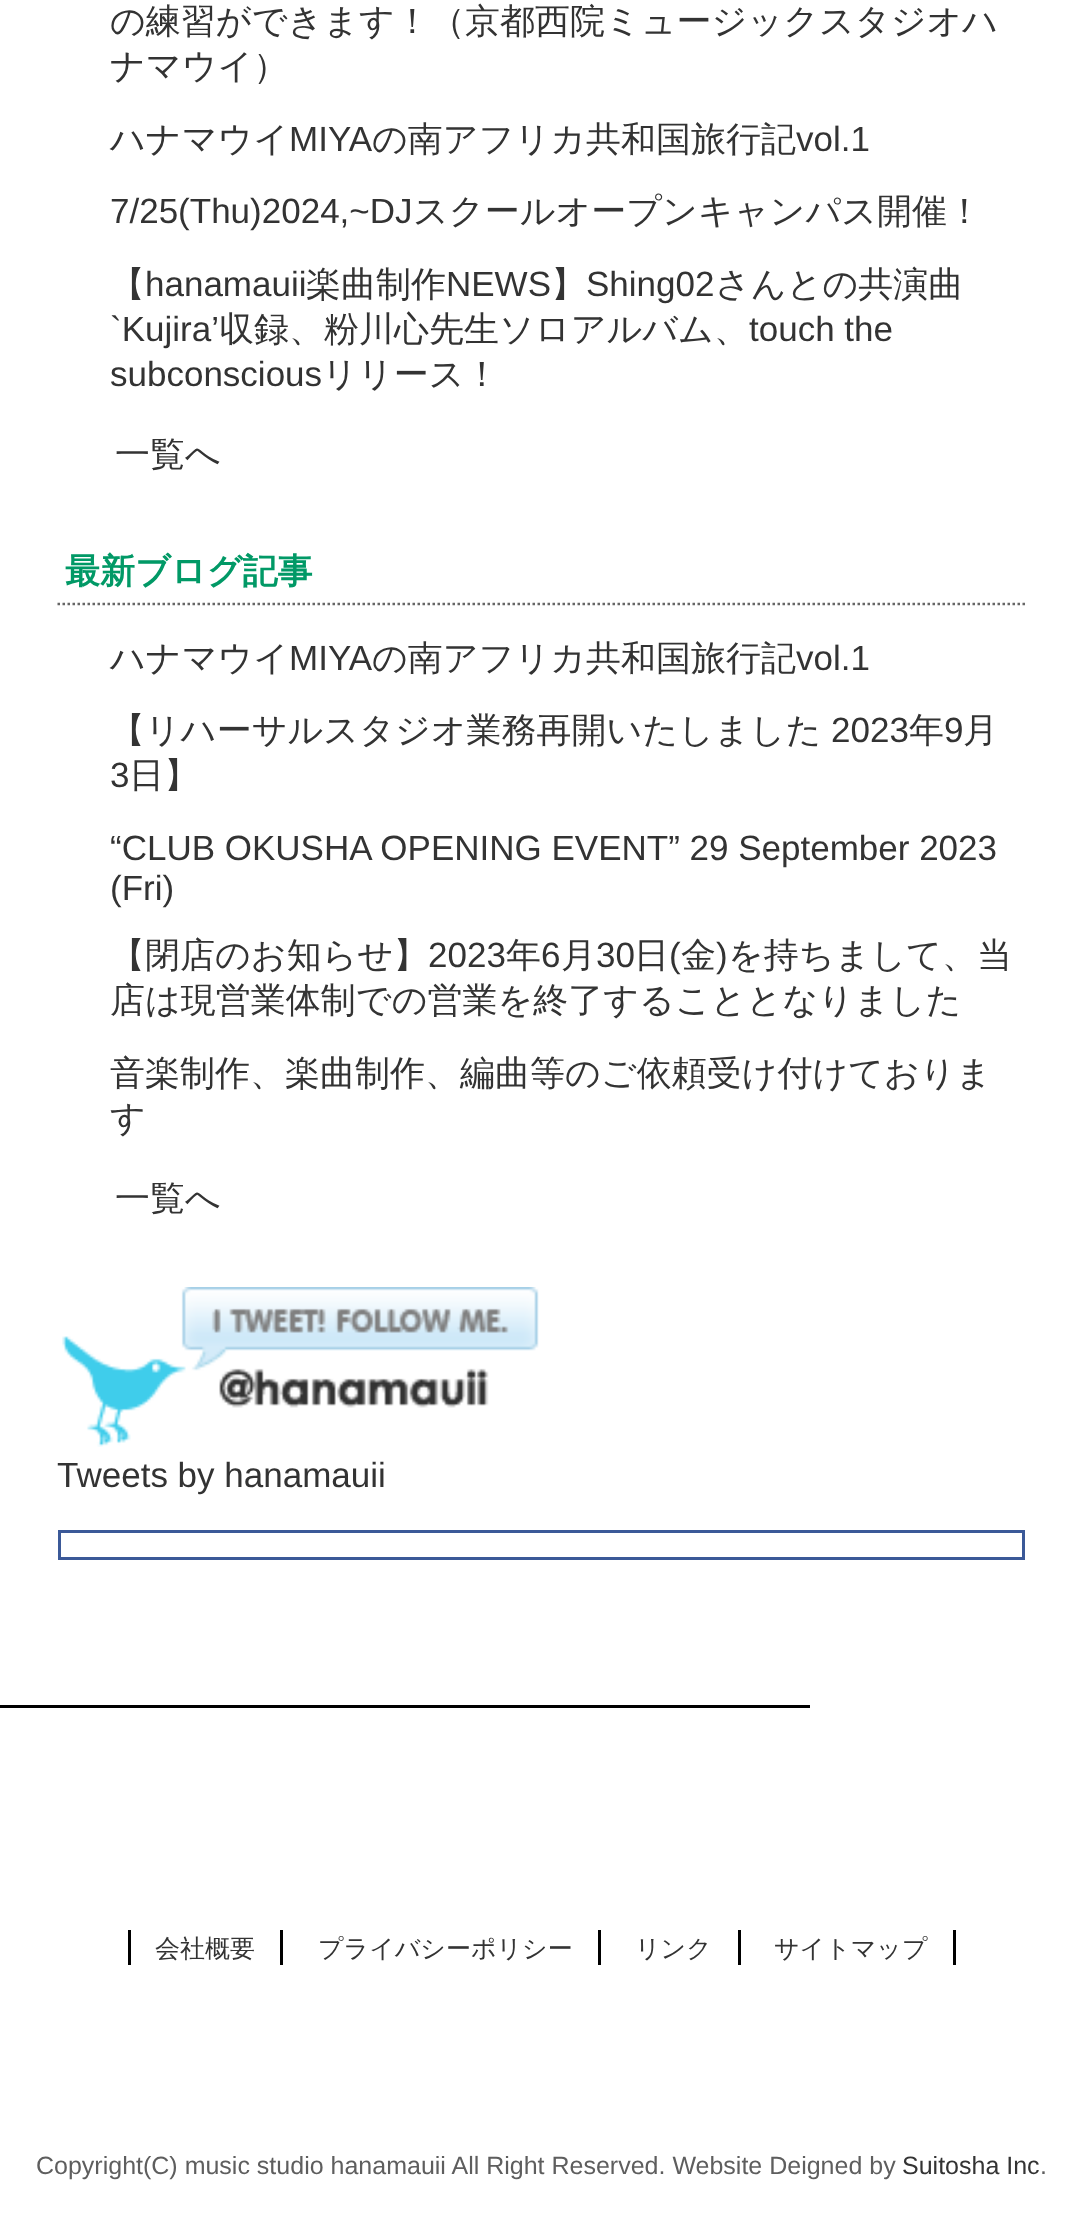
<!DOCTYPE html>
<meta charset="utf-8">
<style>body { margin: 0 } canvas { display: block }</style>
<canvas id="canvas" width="1082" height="2231"></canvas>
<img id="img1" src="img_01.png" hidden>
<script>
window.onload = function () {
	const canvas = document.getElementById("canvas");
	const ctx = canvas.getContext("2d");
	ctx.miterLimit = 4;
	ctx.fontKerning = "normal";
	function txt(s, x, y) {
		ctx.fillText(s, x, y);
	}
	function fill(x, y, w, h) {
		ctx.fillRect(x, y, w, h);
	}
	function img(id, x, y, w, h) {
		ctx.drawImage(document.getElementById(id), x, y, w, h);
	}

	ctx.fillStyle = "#FFFFFF";
	fill(0, 0, 1082, 2231);
	ctx.beginPath();
	ctx.moveTo(57.5, 604);
	ctx.lineTo(1025, 604);
	ctx.strokeStyle = "#666666";
	ctx.lineWidth = 2.5;
	ctx.setLineDash([2.5, 2.5]);
	ctx.stroke();
	img("img1", 62, 1287, 477, 160);
	ctx.strokeStyle = "#3B5998";
	ctx.lineWidth = 3;
	ctx.setLineDash([]);
	ctx.strokeRect(59.5, 1531.5, 964, 27);
	ctx.fillStyle = "#000000";
	fill(0, 1705, 810, 3);
	fill(280, 1930, 3, 35);
	fill(128, 1930, 3, 35);
	fill(598, 1930, 3, 35);
	fill(738, 1930, 3, 35);
	fill(953, 1930, 3, 35);
	ctx.font = "500 35px WenQuanYi Zen Hei";
	ctx.fillStyle = "#333333";
	txt("の練習ができます！（京都西院ミュージックスタジオハ", 110, 33);
	txt("ナマウイ）", 110, 78);
	txt("ハナマウイ", 110, 151);
	ctx.font = "35px Liberation Sans";
	txt("MIYA", 289, 151);
	ctx.font = "500 35px WenQuanYi Zen Hei";
	txt("の南アフリカ共和国旅行記", 372, 151);
	ctx.font = "35px Liberation Sans";
	txt("vol.1", 796, 151);
	txt("7/25(Thu)2024,~DJ", 110, 223);
	ctx.font = "500 35px WenQuanYi Zen Hei";
	txt("スクールオープンキャンパス開催！", 413, 223);
	txt("【", 110, 296);
	ctx.font = "35px Liberation Sans";
	txt("hanamauii", 145, 296);
	ctx.font = "500 35px WenQuanYi Zen Hei";
	txt("楽曲制作", 306, 296);
	ctx.font = "35px Liberation Sans";
	txt("NEWS", 446, 296);
	ctx.font = "500 35px WenQuanYi Zen Hei";
	txt("】", 551, 296);
	ctx.font = "35px Liberation Sans";
	txt("Shing02", 586, 296);
	ctx.font = "500 35px WenQuanYi Zen Hei";
	txt("さんとの共演曲", 715, 296);
	ctx.font = "35px Liberation Sans";
	txt("`Kujira’", 110, 341);
	ctx.font = "500 35px WenQuanYi Zen Hei";
	txt("収録、粉川心先生ソロアルバム、", 219, 341);
	ctx.font = "35px Liberation Sans";
	txt("touch the", 749, 341);
	txt("subconscious", 110, 386);
	ctx.font = "500 35px WenQuanYi Zen Hei";
	txt("リリース！", 322, 386);
	txt("一覧へ", 115, 466);
	ctx.font = "bold 35px WenQuanYi Zen Hei";
	ctx.fillStyle = "#019966";
	txt("最新ブログ記事", 65, 583);
	ctx.font = "500 35px WenQuanYi Zen Hei";
	ctx.fillStyle = "#333333";
	txt("ハナマウイ", 110, 670);
	ctx.font = "35px Liberation Sans";
	txt("MIYA", 289, 670);
	ctx.font = "500 35px WenQuanYi Zen Hei";
	txt("の南アフリカ共和国旅行記", 372, 670);
	ctx.font = "35px Liberation Sans";
	txt("vol.1", 796, 670);
	ctx.font = "500 35px WenQuanYi Zen Hei";
	txt("【リハーサルスタジオ業務再開いたしました", 110, 742);
	ctx.font = "35px Liberation Sans";
	txt("2023", 831, 742);
	ctx.font = "500 35px WenQuanYi Zen Hei";
	txt("年", 909, 742);
	ctx.font = "35px Liberation Sans";
	txt("9", 944, 742);
	ctx.font = "500 35px WenQuanYi Zen Hei";
	txt("月", 963, 742);
	ctx.font = "35px Liberation Sans";
	txt("3", 110, 787);
	ctx.font = "500 35px WenQuanYi Zen Hei";
	txt("日】", 129, 787);
	ctx.font = "35px Liberation Sans";
	txt("“CLUB OKUSHA OPENING EVENT” 29 September 2023", 110, 860);
	txt("(Fri)", 110, 900);
	ctx.font = "500 35px WenQuanYi Zen Hei";
	txt("【閉店のお知らせ】", 110, 967);
	ctx.font = "35px Liberation Sans";
	txt("2023", 428, 967);
	ctx.font = "500 35px WenQuanYi Zen Hei";
	txt("年", 506, 967);
	ctx.font = "35px Liberation Sans";
	txt("6", 541, 967);
	ctx.font = "500 35px WenQuanYi Zen Hei";
	txt("月", 561, 967);
	ctx.font = "35px Liberation Sans";
	txt("30", 596, 967);
	ctx.font = "500 35px WenQuanYi Zen Hei";
	txt("日", 634, 967);
	ctx.font = "35px Liberation Sans";
	txt("(", 669, 967);
	ctx.font = "500 35px WenQuanYi Zen Hei";
	txt("金", 681, 967);
	ctx.font = "35px Liberation Sans";
	txt(")", 716, 967);
	ctx.font = "500 35px WenQuanYi Zen Hei";
	txt("を持ちまして、当", 728, 967);
	txt("店は現営業体制での営業を終了することとなりました", 110, 1012);
	txt("音楽制作、楽曲制作、編曲等のご依頼受け付けておりま", 110, 1085);
	txt("す", 110, 1130);
	txt("一覧へ", 115, 1210);
	ctx.font = "35px Liberation Sans";
	txt("Tweets by hanamauii", 57, 1487);
	ctx.font = "500 25px WenQuanYi Zen Hei";
	txt("会社概要", 155, 1957);
	txt("プライバシーポリシー", 318, 1957);
	txt("リンク", 635, 1957);
	txt("サイトマップ", 774, 1957);
	ctx.font = "25px Liberation Sans";
	ctx.fillStyle = "#5E5E5E";
	txt("Copyright(C) music studio hanamauii All Right Reserved. Website Deigned by", 36, 2174);
	ctx.fillStyle = "#333333";
	txt("Suitosha Inc", 902, 2174);
	ctx.fillStyle = "#5E5E5E";
	txt(".", 1040, 2174);
};
</script>
